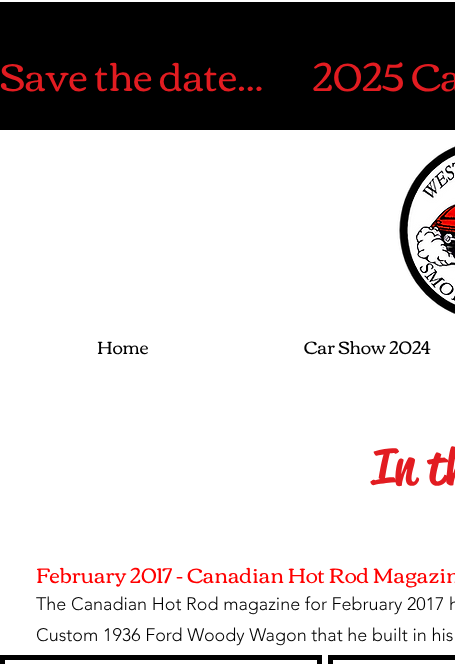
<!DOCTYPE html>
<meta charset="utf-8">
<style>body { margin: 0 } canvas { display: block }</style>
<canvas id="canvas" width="455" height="664"></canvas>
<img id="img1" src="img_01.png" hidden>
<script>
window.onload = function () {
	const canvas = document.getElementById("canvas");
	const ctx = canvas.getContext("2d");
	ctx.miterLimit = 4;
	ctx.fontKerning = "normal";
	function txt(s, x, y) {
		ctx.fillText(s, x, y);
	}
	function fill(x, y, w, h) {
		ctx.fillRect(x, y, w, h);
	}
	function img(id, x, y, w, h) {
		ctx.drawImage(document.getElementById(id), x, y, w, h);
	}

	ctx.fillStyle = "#FFFFFF";
	fill(0, 0, 455, 664);
	ctx.fillStyle = "#000000";
	fill(0, 2, 455, 128);
	img("img1", 397, 145, 58, 169);
	fill(0, 655, 322, 9);
	ctx.fillStyle = "#FFFFFF";
	fill(5, 660, 312, 4);
	ctx.fillStyle = "#000000";
	fill(328, 655, 127, 9);
	ctx.fillStyle = "#FFFFFF";
	fill(333, 660, 122, 4);
	ctx.font = "39px Corben";
	ctx.fillStyle = "#E21C21";
	txt("Save the date...       2025 Ca", 0, 91);
	ctx.font = "18px Corben";
	ctx.fillStyle = "#000000";
	txt("Home", 97, 354);
	txt("Car Show 2024", 304, 354);
	ctx.font = "500 50px 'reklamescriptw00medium'";
	ctx.fillStyle = "#E21C21";
	txt("In th", 372, 484);
	ctx.font = "21px Corben";
	ctx.fillStyle = "#FF0000";
	txt("February 2017 - Canadian Hot Rod Magazin", 36, 583);
	ctx.font = "300 18px 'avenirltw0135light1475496'";
	ctx.fillStyle = "#000000";
	txt("The Canadian Hot Rod magazine for February 2017 h", 36, 610);
	txt("Custom 1936 Ford Woody Wagon that he built in his", 36, 641);
};
</script>
